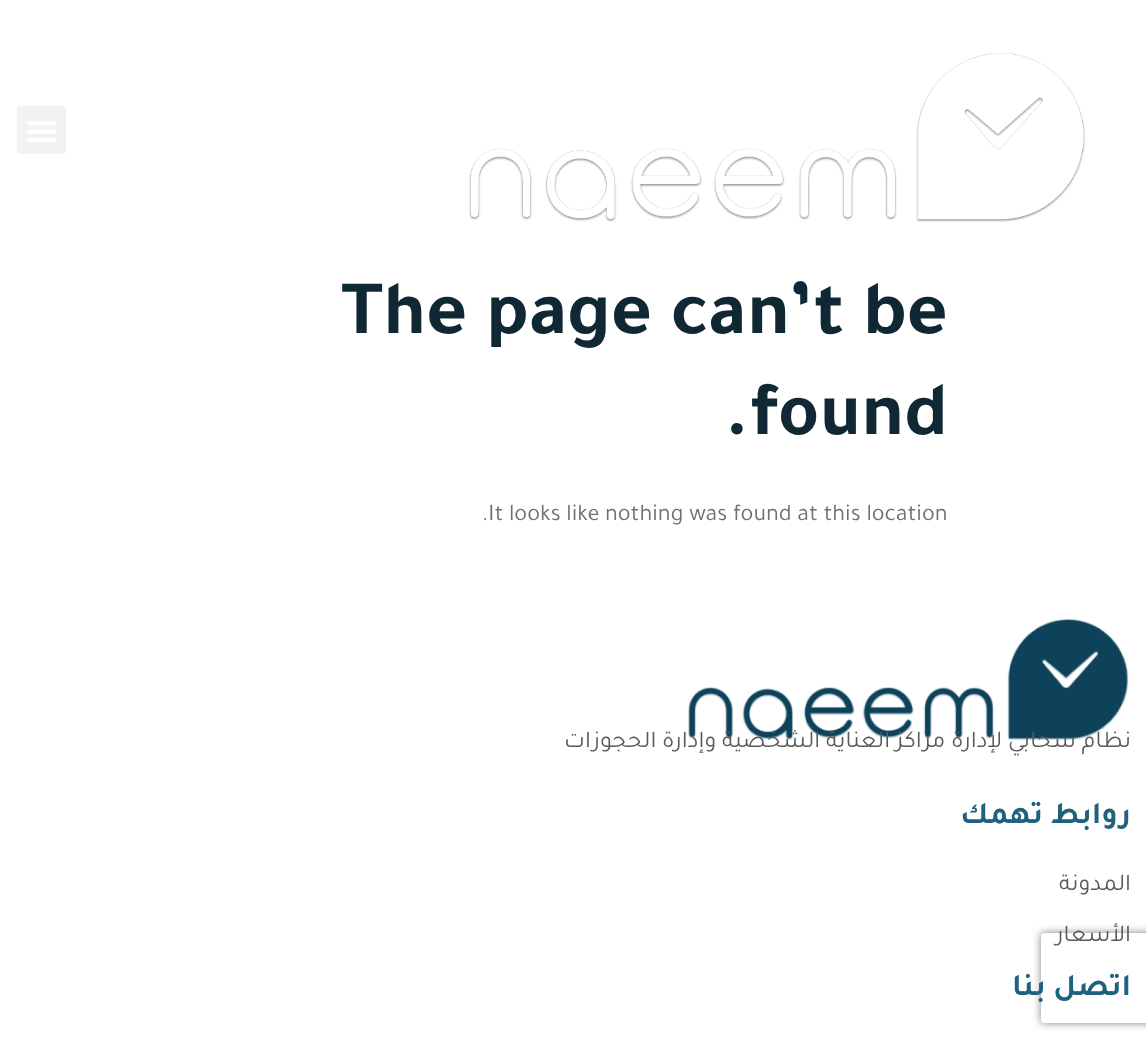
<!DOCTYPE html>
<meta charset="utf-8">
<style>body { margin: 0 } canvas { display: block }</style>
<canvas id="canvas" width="1146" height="1044"></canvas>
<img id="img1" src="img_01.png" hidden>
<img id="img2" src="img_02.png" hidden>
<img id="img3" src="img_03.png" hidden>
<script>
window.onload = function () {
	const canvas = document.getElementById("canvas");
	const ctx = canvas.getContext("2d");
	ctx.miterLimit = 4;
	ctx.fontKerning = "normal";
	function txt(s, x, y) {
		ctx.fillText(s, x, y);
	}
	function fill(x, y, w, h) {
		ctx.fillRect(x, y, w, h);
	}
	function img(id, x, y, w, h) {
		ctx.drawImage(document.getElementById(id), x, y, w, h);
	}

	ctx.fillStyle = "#FFFFFF";
	fill(0, 0, 1146, 1044);
	img("img1", 469, 53, 617, 169);
	ctx.fillStyle = "#F2F2F2";
	ctx.beginPath();
	ctx.roundRect(16, 105, 51, 50, 4);
	ctx.fill();
	ctx.strokeStyle = "#FFFFFF";
	ctx.lineWidth = 2;
	ctx.stroke();
	img("img2", 27, 121, 30, 21);
	img("img3", 688, 619, 441, 122);
	ctx.save();
	ctx.beginPath();
	ctx.moveTo(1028, 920);
	ctx.lineTo(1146, 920);
	ctx.lineTo(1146, 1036);
	ctx.lineTo(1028, 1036);
	ctx.closePath();
	ctx.moveTo(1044, 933);
	ctx.lineTo(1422, 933);
	ctx.bezierCurveTo(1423.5, 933, 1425, 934.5, 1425, 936);
	ctx.lineTo(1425, 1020);
	ctx.bezierCurveTo(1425, 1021.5, 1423.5, 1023, 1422, 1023);
	ctx.lineTo(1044, 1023);
	ctx.bezierCurveTo(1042.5, 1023, 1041, 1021.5, 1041, 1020);
	ctx.lineTo(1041, 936);
	ctx.bezierCurveTo(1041, 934.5, 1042.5, 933, 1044, 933);
	ctx.closePath();
	ctx.clip("evenodd");
	ctx.fillStyle = "#808080";
	ctx.filter = "blur(4px)";
	ctx.beginPath();
	ctx.roundRect(1041, 933, 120, 90, 3);
	ctx.fill();
	ctx.filter = "none";
	ctx.restore();
	ctx.font = "bold 78px Tajawal";
	ctx.fillStyle = "#0F2834";
	txt("The page can’t be", 341, 333);
	txt(".found", 724, 434);
	ctx.font = "24px Tajawal";
	ctx.fillStyle = "#707070";
	txt(".It looks like nothing was found at this location", 482, 520);
	ctx.direction = "rtl";
	ctx.fillStyle = "#5A5A5A";
	txt("نظام سحابي لإدارة مراكز العناية الشخصية وإدارة الحجوزات", 1131, 747);
	ctx.font = "bold 31.25px Tajawal";
	ctx.fillStyle = "#1E6280";
	txt("روابط تهمك", 1131, 823);
	ctx.font = "24px Tajawal";
	ctx.fillStyle = "#5A5A5A";
	txt("المدونة", 1131, 890);
	txt("الأسعار", 1131, 941);
	ctx.font = "bold 31.25px Tajawal";
	ctx.fillStyle = "#1E6280";
	txt("اتصل بنا", 1131, 995);
};
</script>
